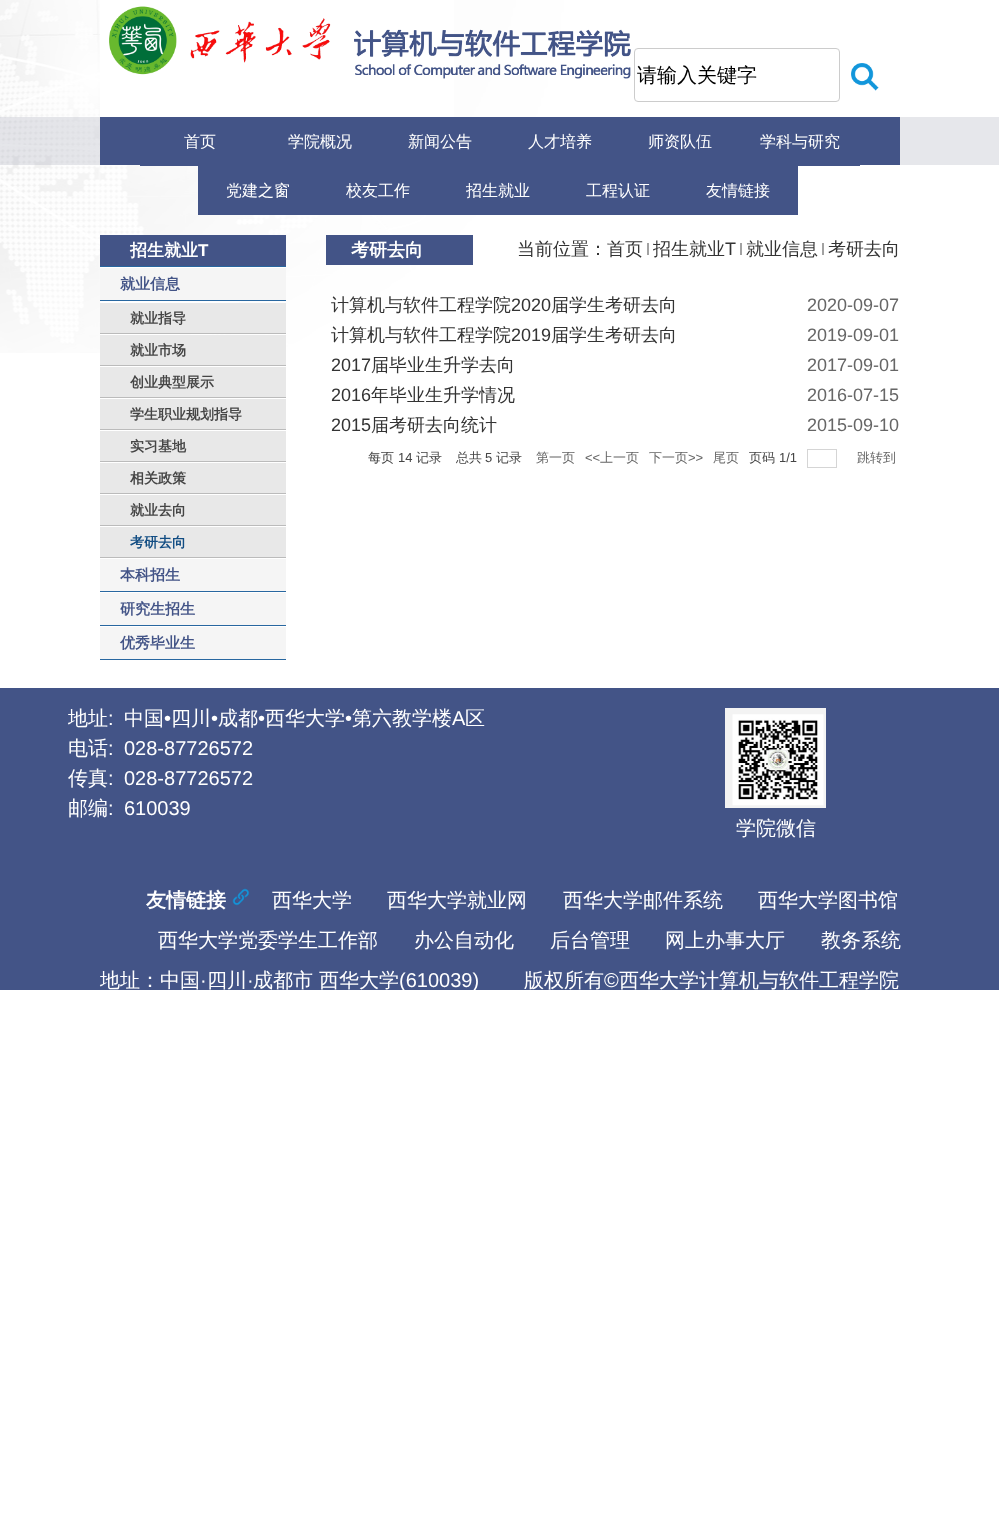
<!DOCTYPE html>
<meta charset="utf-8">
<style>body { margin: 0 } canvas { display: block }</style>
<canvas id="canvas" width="999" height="1528"></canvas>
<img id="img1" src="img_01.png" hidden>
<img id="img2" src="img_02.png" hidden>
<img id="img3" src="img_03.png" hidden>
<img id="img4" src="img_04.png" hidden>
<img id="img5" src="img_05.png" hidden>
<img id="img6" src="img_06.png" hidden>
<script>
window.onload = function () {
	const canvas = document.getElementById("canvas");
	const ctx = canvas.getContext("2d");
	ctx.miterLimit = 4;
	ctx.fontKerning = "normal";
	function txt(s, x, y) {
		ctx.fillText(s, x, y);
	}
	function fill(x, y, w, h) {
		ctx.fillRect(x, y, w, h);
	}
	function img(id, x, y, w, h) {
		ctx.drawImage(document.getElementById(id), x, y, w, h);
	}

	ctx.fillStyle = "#FFFFFF";
	fill(0, 0, 999, 1528);
	img("img1", 0, 0, 999, 353);
	fill(100, 0, 354, 117);
	img("img2", 109, 6, 222, 69);
	img("img3", 354, 29, 277, 50);
	ctx.beginPath();
	ctx.roundRect(634.5, 48.5, 205, 53, 3.5);
	ctx.strokeStyle = "#CCCCCC";
	ctx.stroke();
	img("img4", 851, 63, 28, 28);
	ctx.fillStyle = "#435487";
	fill(100, 117, 800, 48);
	fill(140, 165, 720, 1);
	fill(198, 166, 600, 49);
	fill(100, 235, 186, 31);
	ctx.fillStyle = "#2867A0";
	fill(100, 266, 186, 1);
	ctx.fillStyle = "#F5F5F5";
	fill(100, 268, 186, 32);
	ctx.fillStyle = "#FFFFFF";
	fill(100, 267, 186, 1);
	ctx.fillStyle = "#2867A0";
	fill(100, 300, 186, 1);
	ctx.fillStyle = "#FFFFFF";
	fill(100, 301, 141, 1);
	ctx.fillStyle = "#E8E8E8";
	fill(100, 303, 186, 30);
	ctx.fillStyle = "#FFFFFF";
	fill(100, 302, 139, 1);
	ctx.fillStyle = "#BBBBBB";
	fill(100, 333, 186, 1);
	ctx.fillStyle = "#E8E8E8";
	fill(100, 335, 186, 30);
	ctx.fillStyle = "#FFFFFF";
	fill(100, 334, 80, 1);
	ctx.fillStyle = "#BBBBBB";
	fill(100, 365, 186, 1);
	ctx.fillStyle = "#E8E8E8";
	fill(100, 367, 186, 30);
	ctx.fillStyle = "#BBBBBB";
	fill(100, 397, 186, 1);
	ctx.fillStyle = "#E8E8E8";
	fill(100, 399, 186, 30);
	ctx.fillStyle = "#BBBBBB";
	fill(100, 429, 186, 1);
	ctx.fillStyle = "#E8E8E8";
	fill(100, 431, 186, 30);
	ctx.fillStyle = "#BBBBBB";
	fill(100, 461, 186, 1);
	ctx.fillStyle = "#E8E8E8";
	fill(100, 463, 186, 30);
	ctx.fillStyle = "#BBBBBB";
	fill(100, 493, 186, 1);
	ctx.fillStyle = "#E8E8E8";
	fill(100, 495, 186, 30);
	ctx.fillStyle = "#BBBBBB";
	fill(100, 525, 186, 1);
	ctx.fillStyle = "#E8E8E8";
	fill(100, 527, 186, 30);
	ctx.fillStyle = "#BBBBBB";
	fill(100, 557, 186, 1);
	ctx.fillStyle = "#F5F5F5";
	fill(100, 559, 186, 32);
	ctx.fillStyle = "#2867A0";
	fill(100, 591, 186, 1);
	ctx.fillStyle = "#F5F5F5";
	fill(100, 593, 186, 32);
	ctx.fillStyle = "#2867A0";
	fill(100, 625, 186, 1);
	ctx.fillStyle = "#F5F5F5";
	fill(100, 627, 186, 32);
	ctx.fillStyle = "#2867A0";
	fill(100, 659, 186, 1);
	ctx.fillStyle = "#435487";
	fill(326, 235, 147, 30);
	ctx.fillStyle = "#A2A2A2";
	fill(647, 243, 2, 12);
	fill(740, 243, 2, 12);
	fill(822, 243, 2, 12);
	ctx.strokeStyle = "#D5D5D5";
	ctx.strokeRect(807.5, 449.5, 29, 18);
	ctx.fillStyle = "#435487";
	fill(0, 688, 999, 302);
	img("img5", 725, 708, 101, 100);
	img("img6", 232, 888, 18, 18);
	ctx.font = "500 20px WenQuanYi Zen Hei";
	ctx.fillStyle = "#000000";
	txt("请输入关键字", 637, 82);
	ctx.font = "500 16px WenQuanYi Zen Hei";
	ctx.fillStyle = "#FFFFFF";
	txt("首页", 184, 147);
	txt("学院概况", 288, 147);
	txt("新闻公告", 408, 147);
	txt("人才培养", 528, 147);
	txt("师资队伍", 648, 147);
	txt("学科与研究", 760, 147);
	txt("党建之窗", 226, 196);
	txt("校友工作", 346, 196);
	txt("招生就业", 466, 196);
	txt("工程认证", 586, 196);
	txt("友情链接", 706, 196);
	ctx.font = "bold 17px WenQuanYi Zen Hei";
	txt("招生就业", 130, 256);
	ctx.font = "bold 17px Liberation Sans";
	txt("T", 198, 256);
	ctx.font = "bold 15px WenQuanYi Zen Hei";
	ctx.fillStyle = "#435487";
	txt("就业信息", 120, 289);
	ctx.font = "bold 14px WenQuanYi Zen Hei";
	ctx.fillStyle = "#454545";
	txt("就业指导", 130, 323);
	txt("就业市场", 130, 355);
	txt("创业典型展示", 130, 387);
	txt("学生职业规划指导", 130, 419);
	txt("实习基地", 130, 451);
	txt("相关政策", 130, 483);
	txt("就业去向", 130, 515);
	ctx.fillStyle = "#124D83";
	txt("考研去向", 130, 547);
	ctx.font = "bold 15px WenQuanYi Zen Hei";
	ctx.fillStyle = "#435487";
	txt("本科招生", 120, 580);
	txt("研究生招生", 120, 614);
	txt("优秀毕业生", 120, 648);
	ctx.font = "bold 18px WenQuanYi Zen Hei";
	ctx.fillStyle = "#FFFFFF";
	txt("考研去向", 351, 256);
	ctx.font = "500 18px WenQuanYi Zen Hei";
	ctx.fillStyle = "#333333";
	txt("当前位置：首页", 517, 255);
	txt("招生就业", 653, 255);
	ctx.font = "18px Liberation Sans";
	txt("T", 725, 255);
	ctx.font = "500 18px WenQuanYi Zen Hei";
	txt("就业信息", 746, 255);
	txt("考研去向", 828, 255);
	txt("计算机与软件工程学院", 331, 311);
	ctx.font = "18px Liberation Sans";
	txt("2020", 511, 311);
	ctx.font = "500 18px WenQuanYi Zen Hei";
	txt("届学生考研去向", 551, 311);
	ctx.font = "18px Liberation Sans";
	ctx.fillStyle = "#666666";
	txt("2020-09-07", 807, 311);
	ctx.font = "500 18px WenQuanYi Zen Hei";
	ctx.fillStyle = "#333333";
	txt("计算机与软件工程学院", 331, 341);
	ctx.font = "18px Liberation Sans";
	txt("2019", 511, 341);
	ctx.font = "500 18px WenQuanYi Zen Hei";
	txt("届学生考研去向", 551, 341);
	ctx.font = "18px Liberation Sans";
	ctx.fillStyle = "#666666";
	txt("2019-09-01", 807, 341);
	ctx.fillStyle = "#333333";
	txt("2017", 331, 371);
	ctx.font = "500 18px WenQuanYi Zen Hei";
	txt("届毕业生升学去向", 371, 371);
	ctx.font = "18px Liberation Sans";
	ctx.fillStyle = "#666666";
	txt("2017-09-01", 807, 371);
	ctx.fillStyle = "#333333";
	txt("2016", 331, 401);
	ctx.font = "500 18px WenQuanYi Zen Hei";
	txt("年毕业生升学情况", 371, 401);
	ctx.font = "18px Liberation Sans";
	ctx.fillStyle = "#666666";
	txt("2016-07-15", 807, 401);
	ctx.fillStyle = "#333333";
	txt("2015", 331, 431);
	ctx.font = "500 18px WenQuanYi Zen Hei";
	txt("届考研去向统计", 371, 431);
	ctx.font = "18px Liberation Sans";
	ctx.fillStyle = "#666666";
	txt("2015-09-10", 807, 431);
	ctx.font = "500 13px WenQuanYi Zen Hei";
	ctx.fillStyle = "#454545";
	txt("每页", 368, 462);
	ctx.font = "13px Liberation Sans";
	txt("14", 398, 462);
	ctx.font = "500 13px WenQuanYi Zen Hei";
	txt("记录", 416, 462);
	txt("总共", 456, 462);
	ctx.font = "13px Liberation Sans";
	txt("5", 485, 462);
	ctx.font = "500 13px WenQuanYi Zen Hei";
	txt("记录", 496, 462);
	ctx.fillStyle = "#666666";
	txt("第一页", 536, 462);
	ctx.font = "13px Liberation Sans";
	txt("<<", 585, 462);
	ctx.font = "500 13px WenQuanYi Zen Hei";
	txt("上一页", 600, 462);
	txt("下一页", 649, 462);
	ctx.font = "13px Liberation Sans";
	txt(">>", 688, 462);
	ctx.font = "500 13px WenQuanYi Zen Hei";
	txt("尾页", 713, 462);
	ctx.fillStyle = "#454545";
	txt("页码", 749, 462);
	ctx.font = "13px Liberation Sans";
	txt("1/1", 779, 462);
	ctx.font = "500 13px WenQuanYi Zen Hei";
	ctx.fillStyle = "#666666";
	txt("跳转到", 857, 462);
	ctx.font = "500 20px WenQuanYi Zen Hei";
	ctx.fillStyle = "#FFFFFF";
	txt("地址", 68, 725);
	ctx.font = "20px Liberation Sans";
	txt(":", 108, 725);
	ctx.font = "500 20px WenQuanYi Zen Hei";
	txt("中国", 124, 725);
	ctx.font = "20px Liberation Sans";
	txt("•", 164, 725);
	ctx.font = "500 20px WenQuanYi Zen Hei";
	txt("四川", 171, 725);
	ctx.font = "20px Liberation Sans";
	txt("•", 211, 725);
	ctx.font = "500 20px WenQuanYi Zen Hei";
	txt("成都", 218, 725);
	ctx.font = "20px Liberation Sans";
	txt("•", 258, 725);
	ctx.font = "500 20px WenQuanYi Zen Hei";
	txt("西华大学", 265, 725);
	ctx.font = "20px Liberation Sans";
	txt("•", 345, 725);
	ctx.font = "500 20px WenQuanYi Zen Hei";
	txt("第六教学楼", 352, 725);
	ctx.font = "20px Liberation Sans";
	txt("A", 452, 725);
	ctx.font = "500 20px WenQuanYi Zen Hei";
	txt("区", 465, 725);
	txt("电话", 68, 755);
	ctx.font = "20px Liberation Sans";
	txt(":", 108, 755);
	txt("028-87726572", 124, 755);
	ctx.font = "500 20px WenQuanYi Zen Hei";
	txt("传真", 68, 785);
	ctx.font = "20px Liberation Sans";
	txt(":", 108, 785);
	txt("028-87726572", 124, 785);
	ctx.font = "500 20px WenQuanYi Zen Hei";
	txt("邮编", 68, 815);
	ctx.font = "20px Liberation Sans";
	txt(":", 108, 815);
	txt("610039", 124, 815);
	ctx.font = "500 20px WenQuanYi Zen Hei";
	txt("学院微信", 736, 835);
	ctx.font = "bold 20px WenQuanYi Zen Hei";
	txt("友情链接", 146, 907);
	ctx.font = "500 20px WenQuanYi Zen Hei";
	txt("西华大学", 272, 907);
	txt("西华大学就业网", 387, 907);
	txt("西华大学邮件系统", 563, 907);
	txt("西华大学图书馆", 758, 907);
	txt("西华大学党委学生工作部", 158, 947);
	txt("办公自动化", 414, 947);
	txt("后台管理", 550, 947);
	txt("网上办事大厅", 665, 947);
	txt("教务系统", 821, 947);
	txt("地址：中国", 100, 987);
	ctx.font = "20px Liberation Sans";
	txt("·", 200, 987);
	ctx.font = "500 20px WenQuanYi Zen Hei";
	txt("四川", 207, 987);
	ctx.font = "20px Liberation Sans";
	txt("·", 247, 987);
	ctx.font = "500 20px WenQuanYi Zen Hei";
	txt("成都市 西华大学", 253, 987);
	ctx.font = "20px Liberation Sans";
	txt("(610039)", 399, 987);
	ctx.font = "500 20px WenQuanYi Zen Hei";
	txt("版权所有", 524, 987);
	ctx.font = "20px Liberation Sans";
	txt("©", 604, 987);
	ctx.font = "500 20px WenQuanYi Zen Hei";
	txt("西华大学计算机与软件工程学院", 619, 987);
};
</script>
